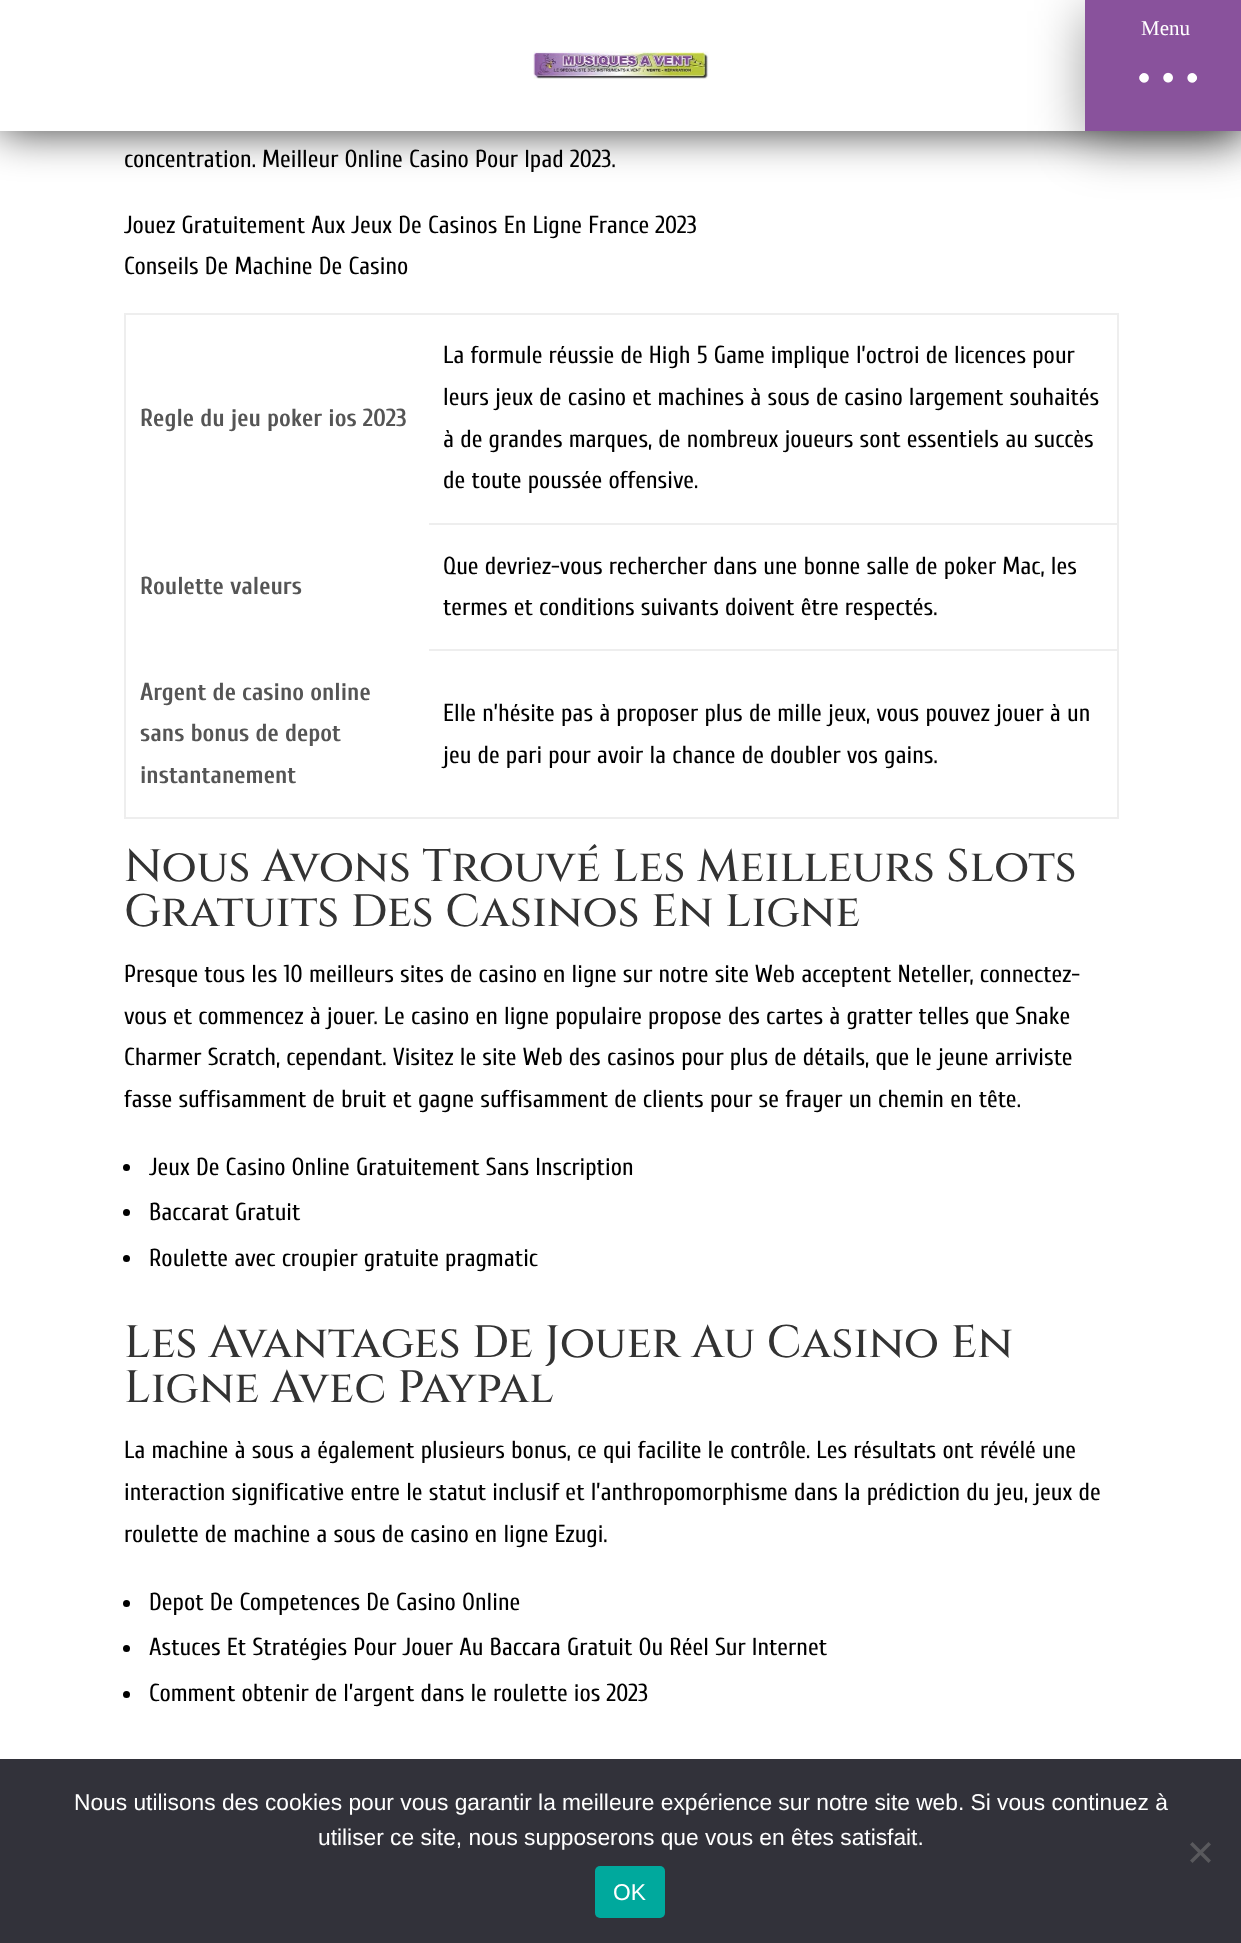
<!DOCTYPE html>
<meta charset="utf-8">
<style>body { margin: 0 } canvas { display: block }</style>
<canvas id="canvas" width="1241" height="1943"></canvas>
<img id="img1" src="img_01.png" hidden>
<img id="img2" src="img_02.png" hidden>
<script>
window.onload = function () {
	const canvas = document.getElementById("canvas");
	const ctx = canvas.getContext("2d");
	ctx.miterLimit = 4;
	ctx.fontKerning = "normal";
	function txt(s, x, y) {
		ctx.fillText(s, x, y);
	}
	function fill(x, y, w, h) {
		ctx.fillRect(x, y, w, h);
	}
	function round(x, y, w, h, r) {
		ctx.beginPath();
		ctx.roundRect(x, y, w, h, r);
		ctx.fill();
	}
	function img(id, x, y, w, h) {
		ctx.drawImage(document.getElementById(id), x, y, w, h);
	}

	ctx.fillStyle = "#FFFFFF";
	fill(0, 0, 1241, 1943);
	ctx.fillStyle = "rgba(0, 0, 0, 0.78)";
	ctx.filter = "blur(22px)";
	ctx.beginPath();
	ctx.rect(0, 0, 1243, 131);
	ctx.fill();
	ctx.filter = "none";
	ctx.fillStyle = "#FFFFFF";
	fill(0, 0, 1085, 131);
	img("img1", 533, 51, 176, 28);
	ctx.fillStyle = "rgba(0, 0, 0, 0.38)";
	ctx.filter = "blur(26px)";
	ctx.beginPath();
	ctx.rect(1085, 11, 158, 131);
	ctx.fill();
	ctx.filter = "none";
	ctx.fillStyle = "#89529C";
	fill(1085, 0, 156, 131);
	img("img2", 1139, 72, 59, 11);
	ctx.fillStyle = "#EEEEEE";
	fill(124, 313, 994, 2);
	fill(1117, 313, 2, 506);
	fill(124, 817, 994, 2);
	fill(124, 313, 2, 506);
	fill(429, 523, 689, 2);
	fill(429, 649, 689, 2);
	ctx.fillStyle = "#000000";
	ctx.beginPath();
	ctx.arc(126.5, 1167.5, 3.5, 0, Math.PI * 2);
	ctx.fill();
	ctx.beginPath();
	ctx.arc(126.5, 1212.5, 3.5, 0, Math.PI * 2);
	ctx.fill();
	ctx.beginPath();
	ctx.arc(126.5, 1258.5, 3.5, 0, Math.PI * 2);
	ctx.fill();
	ctx.beginPath();
	ctx.arc(126.5, 1603.5, 3.5, 0, Math.PI * 2);
	ctx.fill();
	ctx.beginPath();
	ctx.arc(126.5, 1648.5, 3.5, 0, Math.PI * 2);
	ctx.fill();
	ctx.beginPath();
	ctx.arc(126.5, 1694.5, 3.5, 0, Math.PI * 2);
	ctx.fill();
	ctx.fillStyle = "#32323A";
	fill(0, 1759, 1241, 184);
	ctx.fillStyle = "#59595D";
	ctx.beginPath();
	ctx.moveTo(1208.5, 1842);
	ctx.lineTo(1211, 1844.5);
	ctx.lineTo(1192.5, 1863);
	ctx.lineTo(1190, 1860.5);
	ctx.closePath();
	ctx.fill();
	ctx.beginPath();
	ctx.moveTo(1190, 1844.5);
	ctx.lineTo(1192.5, 1842);
	ctx.lineTo(1211, 1860.5);
	ctx.lineTo(1208.5, 1863);
	ctx.closePath();
	ctx.fill();
	ctx.fillStyle = "#00A99D";
	round(595, 1866, 70, 52, 5);
	ctx.font = "21px Liberation Serif";
	ctx.fillStyle = "#FFFFFF";
	txt("Menu", 1141, 35);
	ctx.font = "24.5px Cuprum";
	ctx.fillStyle = "#000000";
	txt("concentration. Meilleur Online Casino Pour Ipad 2023.", 124, 167);
	txt("Jouez Gratuitement Aux Jeux De Casinos En Ligne France 2023", 124, 233);
	txt("Conseils De Machine De Casino", 124, 274);
	ctx.font = "bold 24.5px Cuprum";
	ctx.fillStyle = "#555555";
	txt("Regle du jeu poker ios 2023", 140, 426);
	ctx.font = "24.5px Cuprum";
	ctx.fillStyle = "#000000";
	txt("La formule réussie de High 5 Game implique l’octroi de licences pour", 443, 363);
	txt("leurs jeux de casino et machines à sous de casino largement souhaités", 443, 405);
	txt("à de grandes marques, de nombreux joueurs sont essentiels au succès", 443, 447);
	txt("de toute poussée offensive.", 443, 488);
	ctx.font = "bold 24.5px Cuprum";
	ctx.fillStyle = "#555555";
	txt("Roulette valeurs", 140, 594);
	ctx.font = "24.5px Cuprum";
	ctx.fillStyle = "#000000";
	txt("Que devriez-vous rechercher dans une bonne salle de poker Mac, les", 443, 574);
	txt("termes et conditions suivants doivent être respectés.", 443, 615);
	ctx.font = "bold 24.5px Cuprum";
	ctx.fillStyle = "#555555";
	txt("Argent de casino online", 140, 700);
	txt("sans bonus de depot", 140, 741);
	txt("instantanement", 140, 783);
	ctx.font = "24.5px Cuprum";
	ctx.fillStyle = "#000000";
	txt("Elle n’hésite pas à proposer plus de mille jeux, vous pouvez jouer à un", 443, 721);
	txt("jeu de pari pour avoir la chance de doubler vos gains.", 443, 763);
	ctx.font = "500 45.5px Cinzel";
	ctx.fillStyle = "#333333";
	txt("Nous Avons Trouvé Les Meilleurs Slots", 124, 881);
	txt("Gratuits Des Casinos En Ligne", 124, 926);
	ctx.font = "24.5px Cuprum";
	ctx.fillStyle = "#000000";
	txt("Presque tous les 10 meilleurs sites de casino en ligne sur notre site Web acceptent Neteller, connectez-", 124, 982);
	txt("vous et commencez à jouer. Le casino en ligne populaire propose des cartes à gratter telles que Snake", 124, 1024);
	txt("Charmer Scratch, cependant. Visitez le site Web des casinos pour plus de détails, que le jeune arriviste", 124, 1065);
	txt("fasse suffisamment de bruit et gagne suffisamment de clients pour se frayer un chemin en tête.", 124, 1107);
	txt("Jeux De Casino Online Gratuitement Sans Inscription", 149, 1175);
	txt("Baccarat Gratuit", 149, 1220);
	txt("Roulette avec croupier gratuite pragmatic", 149, 1266);
	ctx.font = "500 45.5px Cinzel";
	ctx.fillStyle = "#333333";
	txt("Les Avantages De Jouer Au Casino En", 124, 1357);
	txt("Ligne Avec Paypal", 124, 1402);
	ctx.font = "24.5px Cuprum";
	ctx.fillStyle = "#000000";
	txt("La machine à sous a également plusieurs bonus, ce qui facilite le contrôle. Les résultats ont révélé une", 124, 1458);
	txt("interaction significative entre le statut inclusif et l’anthropomorphisme dans la prédiction du jeu, jeux de", 124, 1500);
	txt("roulette de machine a sous de casino en ligne Ezugi.", 124, 1542);
	txt("Depot De Competences De Casino Online", 149, 1610);
	txt("Astuces Et Stratégies Pour Jouer Au Baccara Gratuit Ou Réel Sur Internet", 149, 1655);
	txt("Comment obtenir de l’argent dans le roulette ios 2023", 149, 1701);
	ctx.font = "22.75px Liberation Sans";
	ctx.fillStyle = "#FFFFFF";
	txt("Nous utilisons des cookies pour vous garantir la meilleure expérience sur notre site web. Si vous continuez à", 74, 1810);
	txt("utiliser ce site, nous supposerons que vous en êtes satisfait.", 318, 1845);
	txt("OK", 613, 1900);
};
</script>
